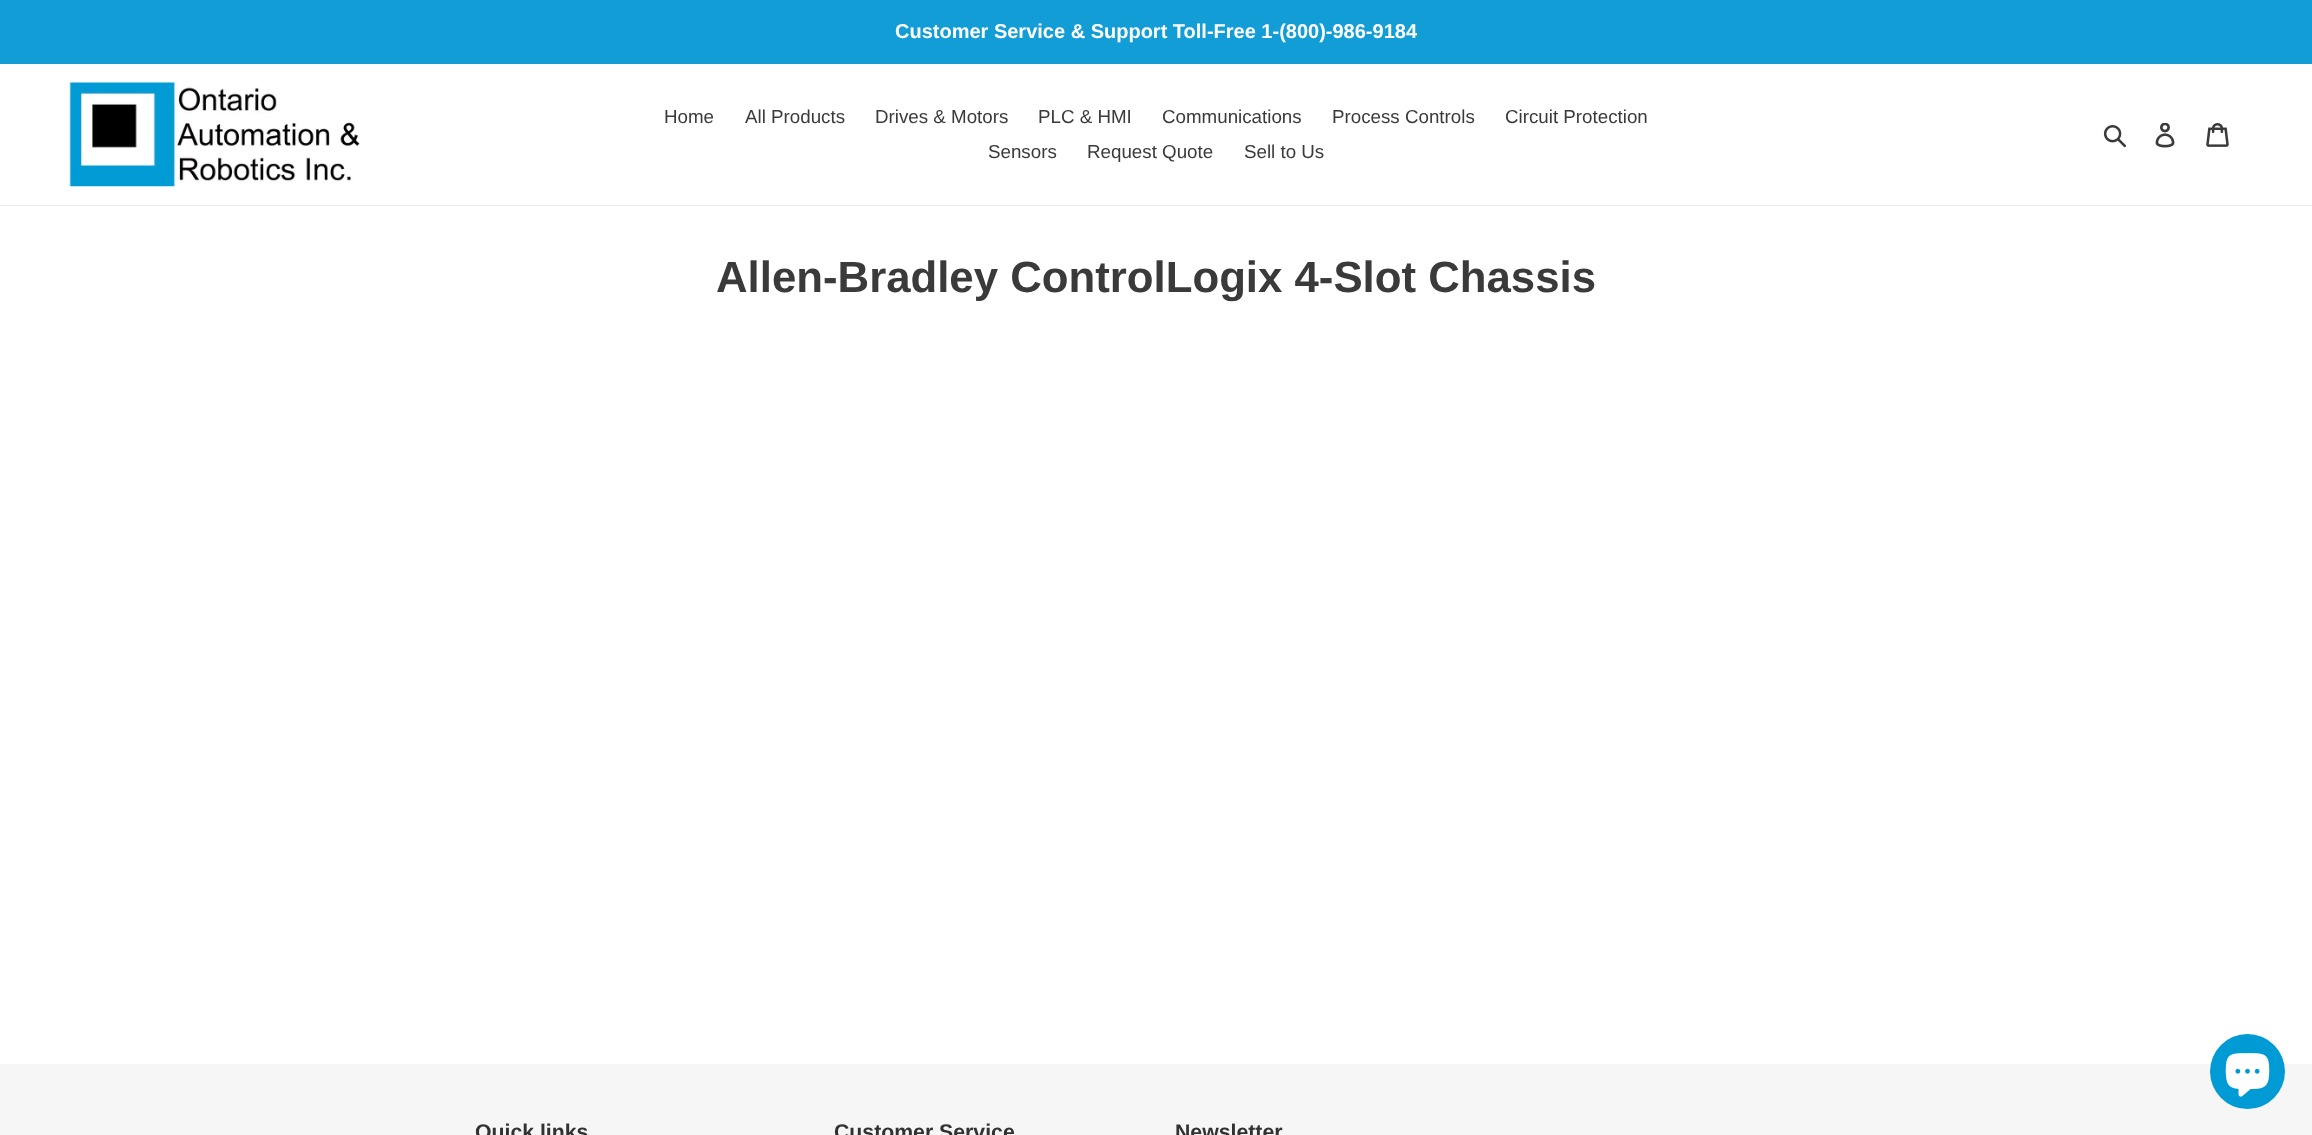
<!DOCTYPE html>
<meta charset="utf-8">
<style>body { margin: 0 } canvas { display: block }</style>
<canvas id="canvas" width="2312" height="1135"></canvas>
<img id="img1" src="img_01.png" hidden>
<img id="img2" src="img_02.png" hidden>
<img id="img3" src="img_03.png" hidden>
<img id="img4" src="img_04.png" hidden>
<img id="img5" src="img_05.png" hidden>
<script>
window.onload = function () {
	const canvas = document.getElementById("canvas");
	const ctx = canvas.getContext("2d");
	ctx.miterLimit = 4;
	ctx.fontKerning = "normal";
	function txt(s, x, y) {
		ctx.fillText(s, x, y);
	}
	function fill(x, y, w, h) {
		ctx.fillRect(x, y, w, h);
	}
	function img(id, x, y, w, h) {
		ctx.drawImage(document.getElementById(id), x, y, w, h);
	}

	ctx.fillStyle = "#FFFFFF";
	fill(0, 0, 2312, 1135);
	ctx.fillStyle = "#139DD7";
	fill(0, 0, 2312, 64);
	ctx.fillStyle = "#EBEBEB";
	fill(0, 205, 2312, 1);
	img("img1", 69, 82, 291, 105);
	img("img2", 2103, 125, 23, 23);
	img("img3", 2155, 123, 20, 25);
	img("img4", 2206, 123, 23, 24);
	ctx.fillStyle = "#F6F6F6";
	fill(0, 1064, 2312, 71);
	ctx.fillStyle = "#009BD4";
	ctx.beginPath();
	ctx.arc(2247.5, 1071.5, 37.5, 0, Math.PI * 2);
	ctx.fill();
	img("img5", 2225, 1053, 45, 44);
	ctx.font = "bold 20px Liberation Sans";
	ctx.fillStyle = "#FFFFFF";
	txt("Customer Service & Support Toll-Free 1-(800)-986-9184", 895, 38);
	ctx.font = "18.75px Liberation Sans";
	ctx.fillStyle = "#3A3A3A";
	txt("Home", 664, 123);
	txt("All Products", 745, 123);
	txt("Drives & Motors", 875, 123);
	txt("PLC & HMI", 1038, 123);
	txt("Communications", 1162, 123);
	txt("Process Controls", 1332, 123);
	txt("Circuit Protection", 1505, 123);
	txt("Sensors", 988, 158);
	txt("Request Quote", 1087, 158);
	txt("Sell to Us", 1244, 158);
	ctx.font = "bold 43.75px Liberation Sans";
	txt("Allen-Bradley ControlLogix 4-Slot Chassis", 716, 292);
	ctx.font = "bold 21.25px Liberation Sans";
	ctx.fillStyle = "#333232";
	txt("Quick links", 475, 1139);
	txt("Customer Service", 834, 1139);
	txt("Newsletter", 1175, 1139);
};
</script>
